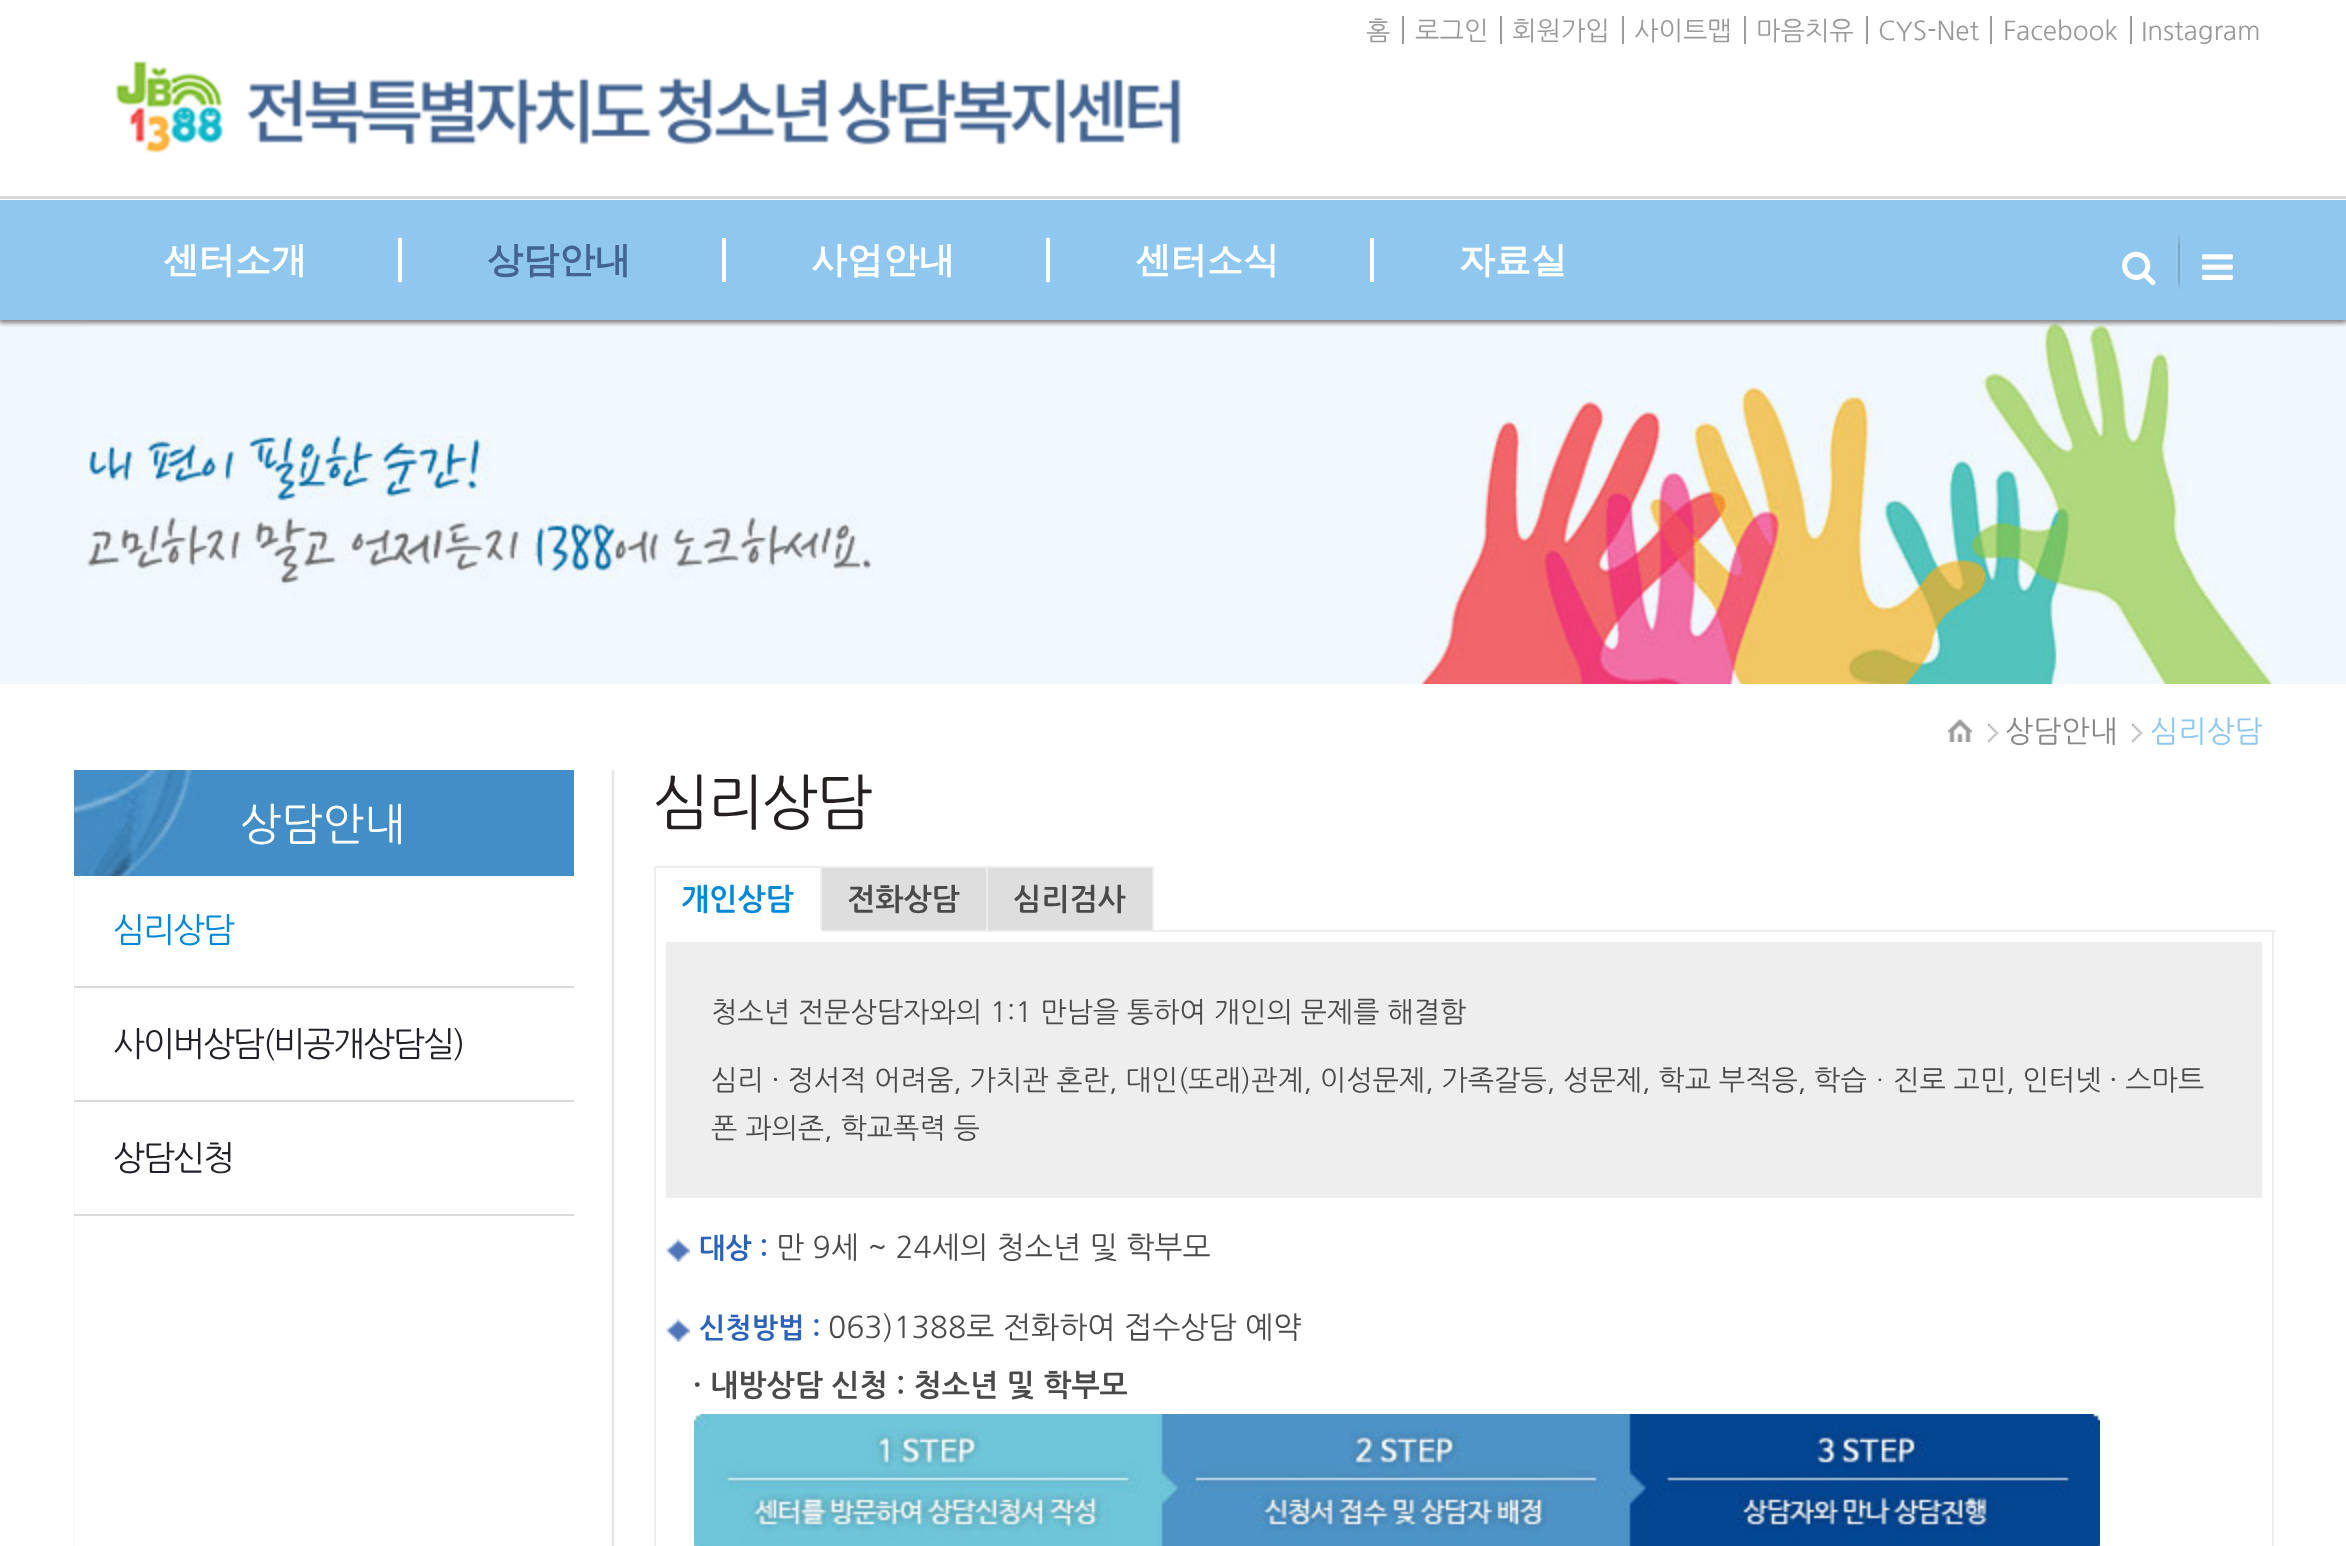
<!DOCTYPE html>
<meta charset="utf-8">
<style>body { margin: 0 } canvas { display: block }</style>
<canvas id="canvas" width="2346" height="1546"></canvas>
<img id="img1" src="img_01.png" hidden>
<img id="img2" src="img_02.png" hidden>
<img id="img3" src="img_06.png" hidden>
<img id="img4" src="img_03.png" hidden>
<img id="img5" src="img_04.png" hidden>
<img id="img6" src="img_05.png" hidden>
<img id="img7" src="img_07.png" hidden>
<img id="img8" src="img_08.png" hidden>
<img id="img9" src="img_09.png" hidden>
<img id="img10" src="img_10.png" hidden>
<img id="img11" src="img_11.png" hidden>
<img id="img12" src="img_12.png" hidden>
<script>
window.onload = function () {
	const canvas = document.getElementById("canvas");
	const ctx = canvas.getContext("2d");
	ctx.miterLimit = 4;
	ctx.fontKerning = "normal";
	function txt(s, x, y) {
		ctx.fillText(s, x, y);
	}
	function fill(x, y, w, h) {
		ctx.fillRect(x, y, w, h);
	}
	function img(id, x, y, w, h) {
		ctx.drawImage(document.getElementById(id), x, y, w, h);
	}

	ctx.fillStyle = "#FFFFFF";
	fill(0, 0, 2346, 1546);
	img("img1", 0, 320, 2346, 4);
	ctx.fillStyle = "#90C7EF";
	fill(0, 200, 2346, 120);
	ctx.fillStyle = "#D8D8D8";
	fill(0, 196, 2346, 3);
	ctx.fillStyle = "#9C9C9B";
	fill(1402, 16, 2, 28);
	fill(1500, 16, 2, 28);
	fill(1622, 16, 2, 28);
	fill(1744, 16, 2, 28);
	fill(1866, 16, 2, 28);
	fill(1990, 16, 2, 28);
	fill(2130, 16, 2, 28);
	img("img2", 115, 60, 1066, 93);
	ctx.fillStyle = "#F1F8FD";
	fill(0, 324, 2346, 360);
	img("img3", 87, 324, 2186, 360);
	ctx.save();
	ctx.beginPath();
	ctx.rect(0, 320, 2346, 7);
	ctx.clip();
	ctx.fillStyle = "rgba(0, 0, 0, 0.3)";
	ctx.filter = "blur(2px)";
	ctx.beginPath();
	ctx.rect(0, 204, 2346, 120);
	ctx.fill();
	ctx.filter = "none";
	ctx.restore();
	ctx.fillStyle = "#FFFFFF";
	fill(398, 238, 4, 44);
	fill(722, 238, 4, 44);
	fill(1046, 238, 4, 44);
	fill(1370, 238, 4, 44);
	img("img4", 2176, 234, 6, 56);
	img("img5", 2122, 251, 34, 35);
	img("img6", 2202, 254, 31, 26);
	img("img7", 1948, 719, 24, 23);
	img("img8", 1988, 724, 11, 19);
	img("img8", 2132, 724, 11, 19);
	img("img9", 74, 770, 541, 776);
	img("img10", 74, 770, 500, 106);
	ctx.fillStyle = "#DADADA";
	fill(74, 986, 500, 2);
	fill(74, 1100, 500, 2);
	fill(74, 1214, 500, 2);
	ctx.fillStyle = "#EEEEEE";
	fill(1154, 930, 1122, 2);
	fill(654, 866, 2, 680);
	fill(656, 866, 498, 2);
	fill(820, 866, 2, 66);
	ctx.fillStyle = "#FFFFFF";
	fill(820, 930, 2, 2);
	ctx.fillStyle = "#DEDEDE";
	fill(822, 868, 164, 62);
	ctx.fillStyle = "#EEEEEE";
	fill(986, 866, 2, 66);
	fill(822, 930, 166, 2);
	ctx.fillStyle = "#DEDEDE";
	fill(988, 868, 164, 62);
	ctx.fillStyle = "#EEEEEE";
	fill(1152, 866, 2, 66);
	fill(988, 930, 166, 2);
	fill(2272, 932, 2, 614);
	fill(666, 942, 1596, 256);
	img("img11", 666, 1238, 24, 24);
	img("img11", 666, 1318, 24, 24);
	img("img12", 694, 1414, 1406, 132);
	ctx.font = "26px NanumGothic";
	ctx.fillStyle = "#999999";
	txt("홈", 1366, 40);
	txt("로그인", 1415, 40);
	txt("회원가입", 1512, 40);
	txt("사이트맵", 1634, 40);
	txt("마음치유", 1756, 40);
	txt("CYS-Net", 1878, 40);
	txt("Facebook", 2003, 40);
	txt("Instagram", 2141, 40);
	ctx.font = "bold 36px WenQuanYi Zen Hei";
	ctx.fillStyle = "#FFFFFF";
	txt("센터소개", 163, 272);
	ctx.fillStyle = "#436490";
	txt("상담안내", 487, 272);
	ctx.fillStyle = "#FFFFFF";
	txt("사업안내", 811, 272);
	txt("센터소식", 1135, 272);
	txt("자료실", 1459, 272);
	ctx.font = "30px NanumGothic";
	ctx.fillStyle = "#888888";
	txt("상담안내", 2005, 742);
	ctx.fillStyle = "#90C7EF";
	txt("심리상담", 2150, 742);
	ctx.font = "44px NanumGothic";
	ctx.fillStyle = "#FFFFFF";
	txt("상담안내", 240, 840);
	ctx.letterSpacing = "-2px";
	ctx.font = "34px NanumGothic";
	ctx.fillStyle = "#0388D6";
	txt("심리상담", 113, 942);
	ctx.fillStyle = "#242027";
	txt("사이버상담(비공개상담실)", 113, 1056);
	txt("상담신청", 113, 1170);
	ctx.font = "60px NanumGothic";
	ctx.fillStyle = "#242020";
	txt("심리상담", 653, 824);
	ctx.letterSpacing = "0px";
	ctx.font = "bold 30px NanumGothic";
	ctx.fillStyle = "#0388D6";
	txt("개인상담", 681, 910);
	ctx.fillStyle = "#4A4A4A";
	txt("전화상담", 847, 910);
	txt("심리검사", 1013, 910);
	ctx.font = "28px NanumGothic";
	txt("청소년 전문상담자와의 1:1 만남을 통하여 개인의 문제를 해결함", 711, 1022);
	txt("심리 · 정서적 어려움, 가치관 혼란, 대인(또래)관계, 이성문제, 가족갈등, 성문제, 학교 부적응, 학습ㆍ진로 고민, 인터넷 · 스마트", 711, 1090);
	txt("폰 과의존, 학교폭력 등", 711, 1138);
	ctx.font = "bold 28px NanumGothic";
	ctx.fillStyle = "#2C62B7";
	txt("대상 :", 699, 1258);
	ctx.font = "30px NanumGothic";
	ctx.fillStyle = "#4A4A4A";
	txt("만 9세 ~ 24세의 청소년 및 학부모", 776, 1258);
	ctx.font = "bold 28px NanumGothic";
	ctx.fillStyle = "#2C62B7";
	txt("신청방법 :", 699, 1338);
	ctx.font = "30px NanumGothic";
	ctx.fillStyle = "#4A4A4A";
	txt("063)1388로 전화하여 접수상담 예약", 828, 1338);
	ctx.font = "bold 30px NanumGothic";
	txt("· 내방상담 신청 : 청소년 및 학부모", 693, 1396);
};
</script>
